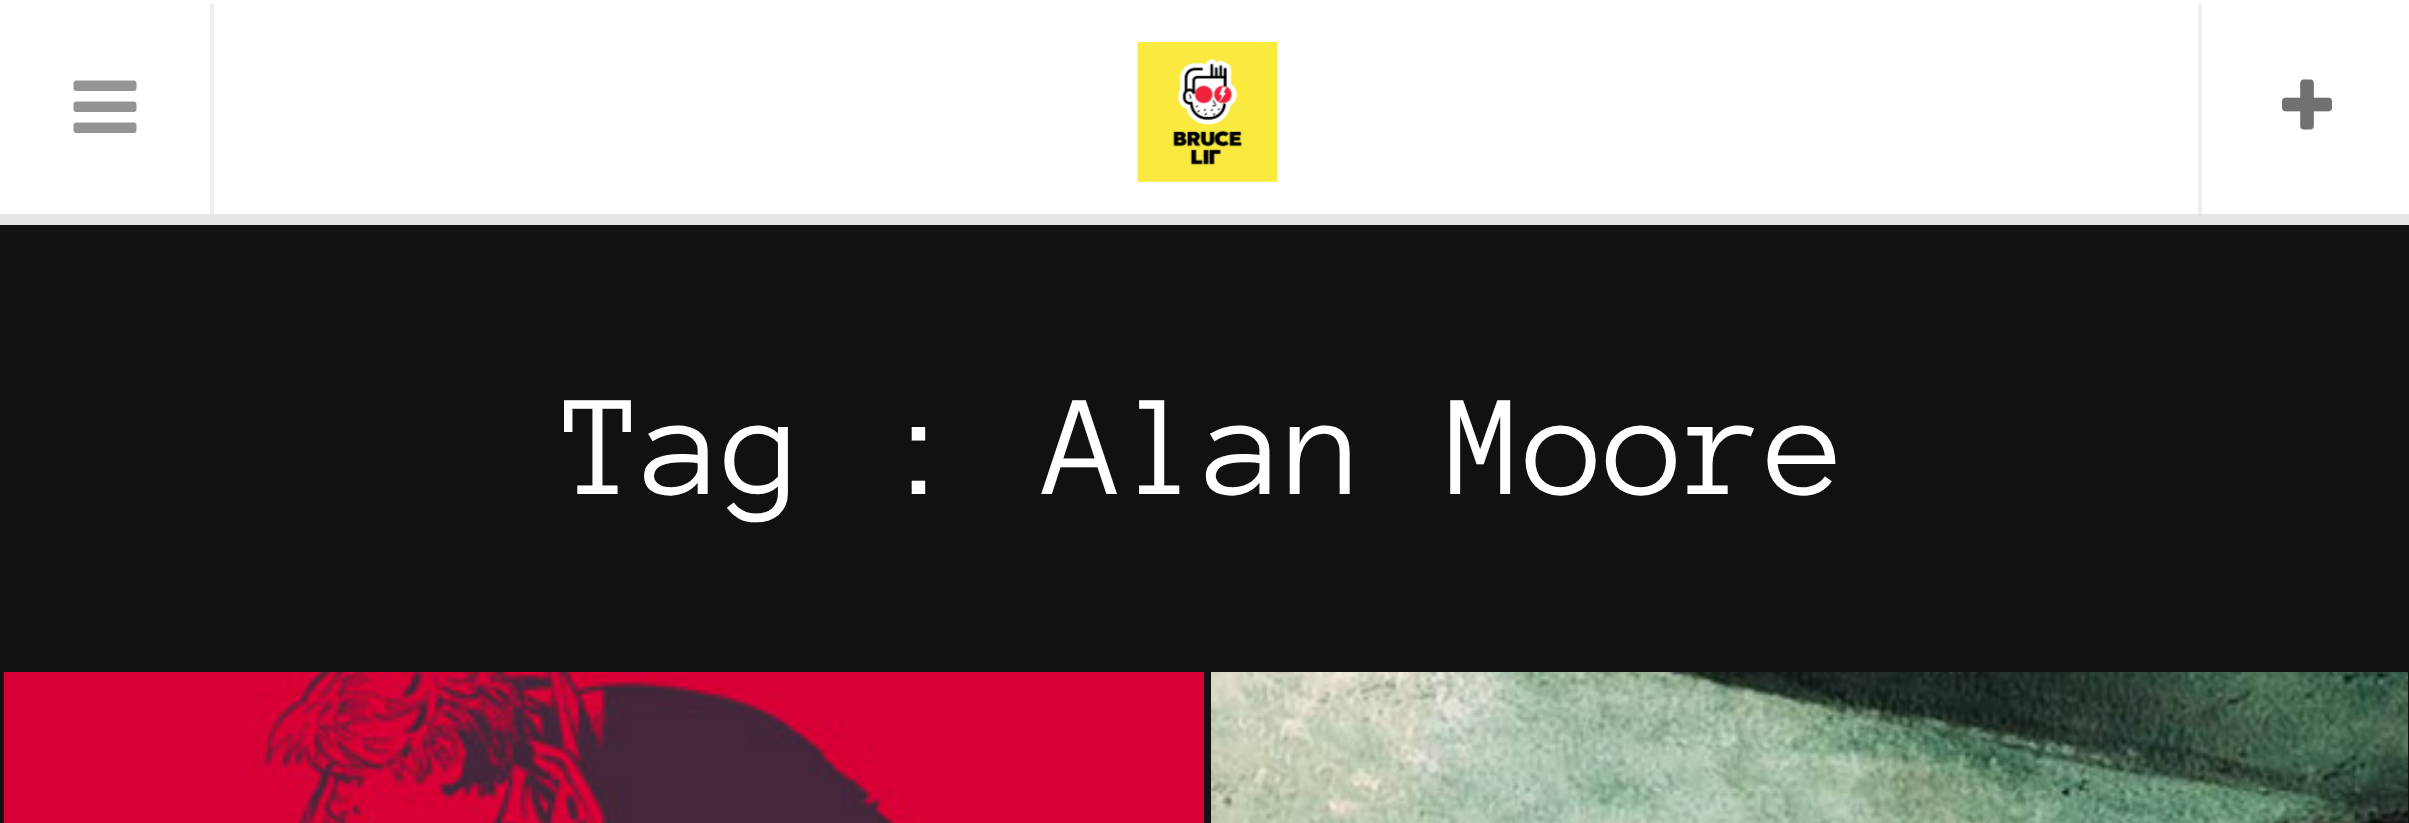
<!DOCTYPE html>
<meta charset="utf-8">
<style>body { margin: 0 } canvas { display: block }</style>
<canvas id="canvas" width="2409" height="823"></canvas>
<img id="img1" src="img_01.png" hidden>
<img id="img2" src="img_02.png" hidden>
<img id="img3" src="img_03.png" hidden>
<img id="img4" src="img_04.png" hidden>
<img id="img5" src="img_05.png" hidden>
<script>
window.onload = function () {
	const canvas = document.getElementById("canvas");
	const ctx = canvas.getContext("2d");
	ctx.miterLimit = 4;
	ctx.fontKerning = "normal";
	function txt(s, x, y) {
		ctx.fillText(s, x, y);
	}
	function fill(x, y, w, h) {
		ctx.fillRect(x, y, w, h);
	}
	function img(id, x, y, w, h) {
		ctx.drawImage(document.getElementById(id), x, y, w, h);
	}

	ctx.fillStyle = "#111111";
	fill(0, 0, 2409, 823);
	ctx.fillStyle = "#FFFFFF";
	fill(0, 0, 2409, 214);
	ctx.fillStyle = "#E7E7E7";
	fill(0, 214, 2409, 11);
	ctx.fillStyle = "#EEEEEE";
	fill(210, 4, 4, 210);
	img("img1", 73, 80, 64, 53);
	img("img2", 1136, 42, 142, 140);
	fill(2198, 4, 4, 210);
	img("img3", 2282, 79, 51, 51);
	img("img4", 3, 672, 1201, 151);
	img("img5", 1211, 672, 1197, 151);
	ctx.font = "147px Anonymous Pro";
	ctx.fillStyle = "#FFFFFF";
	txt("Tag : Alan Moore", 564, 494);
};
</script>
